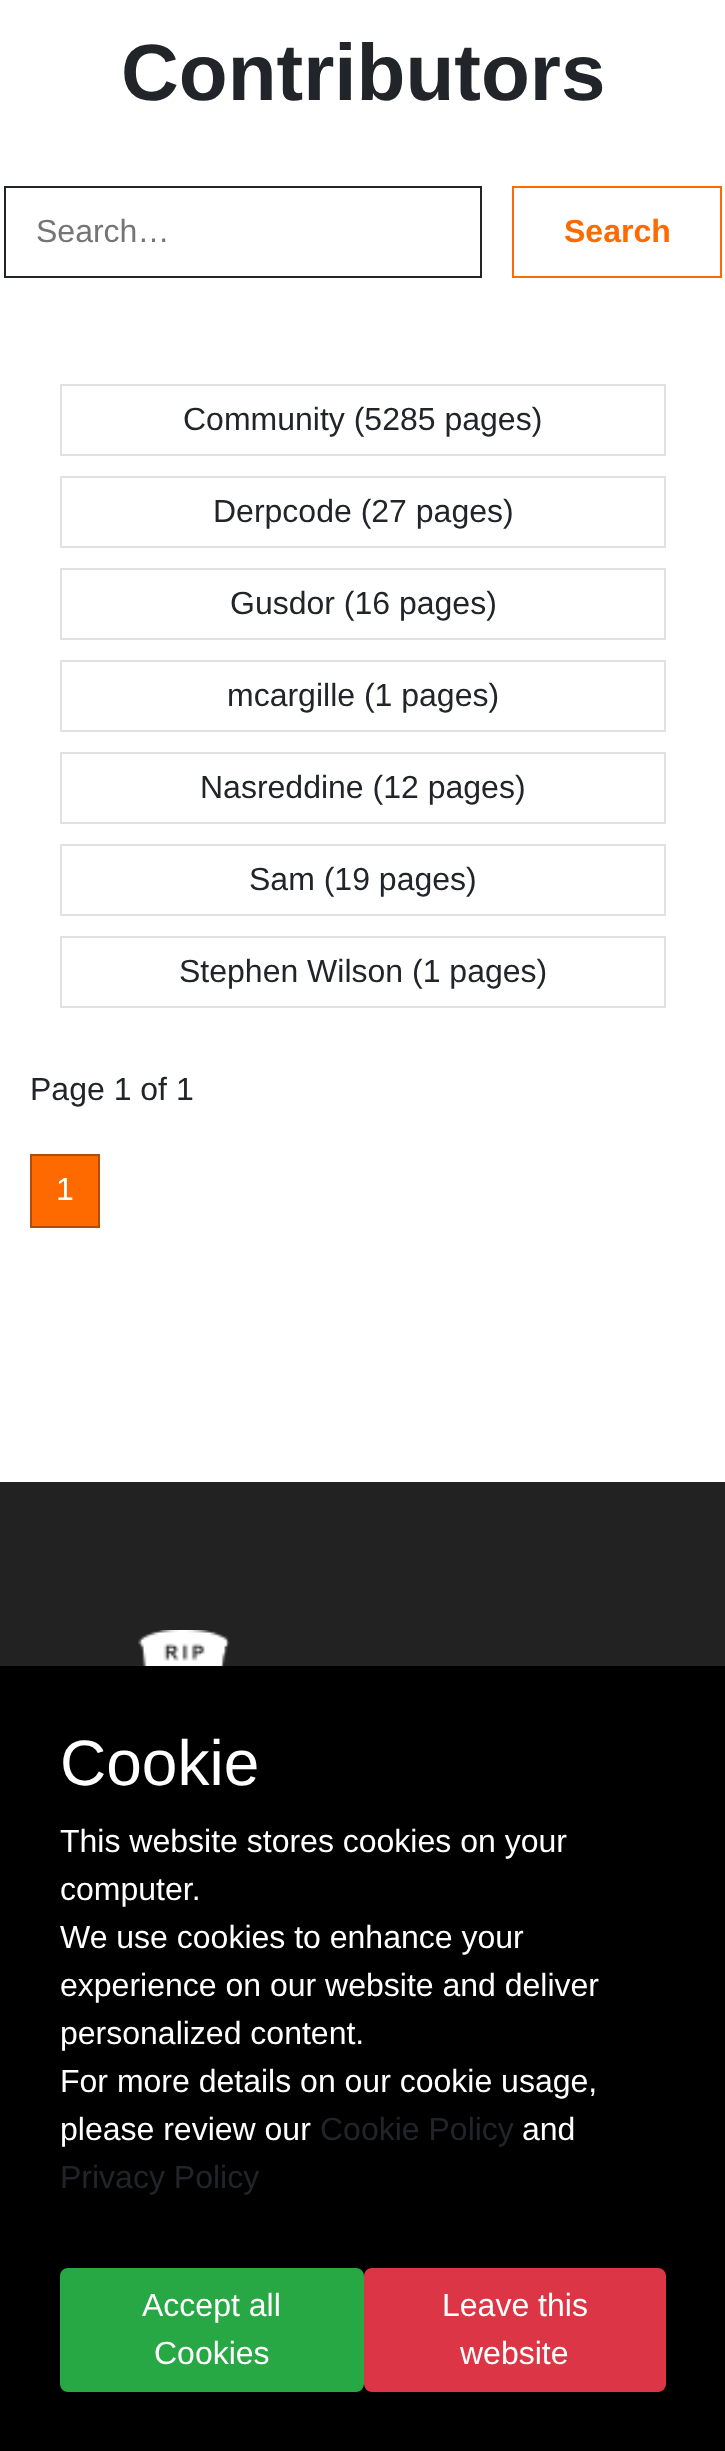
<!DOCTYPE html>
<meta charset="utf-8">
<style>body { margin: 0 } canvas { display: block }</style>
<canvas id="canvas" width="725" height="2451"></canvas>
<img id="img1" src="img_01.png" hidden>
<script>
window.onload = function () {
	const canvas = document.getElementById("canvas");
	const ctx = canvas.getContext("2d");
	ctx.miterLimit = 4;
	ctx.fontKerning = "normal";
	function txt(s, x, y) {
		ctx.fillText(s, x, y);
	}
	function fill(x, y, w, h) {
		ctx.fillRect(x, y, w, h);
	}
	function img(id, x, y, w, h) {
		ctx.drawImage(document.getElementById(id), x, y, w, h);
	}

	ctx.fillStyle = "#FFFFFF";
	fill(0, 0, 725, 2451);
	ctx.strokeStyle = "#212529";
	ctx.lineWidth = 2;
	ctx.strokeRect(5, 187, 476, 90);
	ctx.strokeStyle = "#FF6A00";
	ctx.strokeRect(513, 187, 208, 90);
	ctx.strokeStyle = "#E2E1E1";
	ctx.strokeRect(61, 385, 604, 70);
	ctx.strokeRect(61, 477, 604, 70);
	ctx.strokeRect(61, 569, 604, 70);
	ctx.strokeRect(61, 661, 604, 70);
	ctx.strokeRect(61, 753, 604, 70);
	ctx.strokeRect(61, 845, 604, 70);
	ctx.strokeRect(61, 937, 604, 70);
	ctx.fillStyle = "#FF6A00";
	ctx.beginPath();
	ctx.rect(31, 1155, 68, 72);
	ctx.fill();
	ctx.strokeStyle = "#AF4D0B";
	ctx.stroke();
	ctx.fillStyle = "#222222";
	fill(0, 1482, 725, 184);
	img("img1", 138, 1630, 92, 36);
	ctx.fillStyle = "#000000";
	fill(0, 1666, 725, 785);
	ctx.fillStyle = "#28A745";
	ctx.beginPath();
	ctx.roundRect(61, 2269, 302, 122, 7);
	ctx.fill();
	ctx.strokeStyle = "#28A745";
	ctx.stroke();
	ctx.fillStyle = "#DC3545";
	ctx.beginPath();
	ctx.roundRect(365, 2269, 300, 122, 7);
	ctx.fill();
	ctx.strokeStyle = "#DC3545";
	ctx.stroke();
	ctx.font = "bold 80px Liberation Sans";
	ctx.fillStyle = "#212529";
	txt("Contributors", 121, 100);
	ctx.font = "32px Liberation Sans";
	ctx.fillStyle = "#757575";
	txt("Search…", 36, 242);
	ctx.font = "bold 32px Liberation Sans";
	ctx.fillStyle = "#FF6A00";
	txt("Search", 564, 242);
	ctx.font = "32px Liberation Sans";
	ctx.fillStyle = "#212529";
	txt("Community (5285 pages)", 183, 430);
	txt("Derpcode (27 pages)", 213, 522);
	txt("Gusdor (16 pages)", 230, 614);
	txt("mcargille (1 pages)", 227, 706);
	txt("Nasreddine (12 pages)", 200, 798);
	txt("Sam (19 pages)", 249, 890);
	txt("Stephen Wilson (1 pages)", 179, 982);
	txt("Page 1 of 1", 30, 1100);
	ctx.fillStyle = "#FFFFFF";
	txt("1", 56, 1200);
	ctx.font = "64px Liberation Sans";
	txt("Cookie", 60, 1785);
	ctx.font = "32px Liberation Sans";
	txt("This website stores cookies on your", 60, 1852);
	txt("computer.", 60, 1900);
	txt("We use cookies to enhance your", 60, 1948);
	txt("experience on our website and deliver", 60, 1996);
	txt("personalized content.", 60, 2044);
	txt("For more details on our cookie usage,", 60, 2092);
	txt("please review our", 60, 2140);
	ctx.fillStyle = "#212529";
	txt("Cookie Policy", 320, 2140);
	ctx.fillStyle = "#FFFFFF";
	txt("and", 522, 2140);
	ctx.fillStyle = "#212529";
	txt("Privacy Policy", 60, 2188);
	ctx.fillStyle = "#FFFFFF";
	txt("Accept all", 142, 2316);
	txt("Cookies", 154, 2364);
	txt("Leave this", 442, 2316);
	txt("website", 460, 2364);
};
</script>
